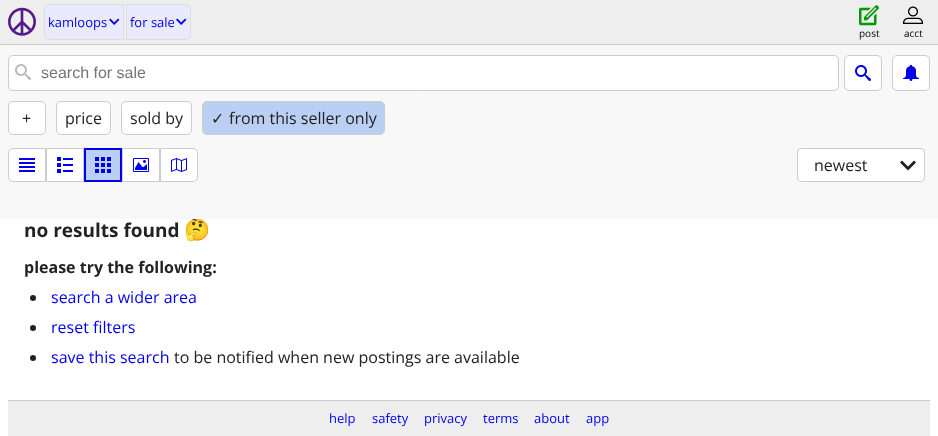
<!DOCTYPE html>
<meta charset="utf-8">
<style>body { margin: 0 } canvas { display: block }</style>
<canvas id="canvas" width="938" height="436"></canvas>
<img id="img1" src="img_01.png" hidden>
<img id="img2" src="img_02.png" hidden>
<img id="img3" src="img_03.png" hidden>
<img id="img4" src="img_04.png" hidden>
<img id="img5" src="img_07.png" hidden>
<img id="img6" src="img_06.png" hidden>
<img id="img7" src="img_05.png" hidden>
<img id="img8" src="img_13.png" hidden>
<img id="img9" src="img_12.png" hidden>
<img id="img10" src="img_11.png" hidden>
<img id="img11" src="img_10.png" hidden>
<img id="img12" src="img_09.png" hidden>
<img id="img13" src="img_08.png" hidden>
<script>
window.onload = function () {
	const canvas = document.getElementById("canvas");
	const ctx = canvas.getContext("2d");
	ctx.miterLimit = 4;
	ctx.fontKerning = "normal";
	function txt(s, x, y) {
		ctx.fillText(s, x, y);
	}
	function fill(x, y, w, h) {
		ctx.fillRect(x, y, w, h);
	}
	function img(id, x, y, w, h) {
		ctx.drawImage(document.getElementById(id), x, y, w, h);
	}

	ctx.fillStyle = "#FFFFFF";
	fill(0, 0, 938, 436);
	ctx.fillStyle = "#EEEEEE";
	fill(0, 0, 938, 44);
	ctx.fillStyle = "#CCCCCC";
	fill(0, 44, 938, 1);
	img("img1", 8, 7, 28, 29);
	ctx.fillStyle = "#EAEAFF";
	ctx.beginPath();
	ctx.roundRect(44.5, 4.5, 79, 35, [4.5, 0, 0, 4.5]);
	ctx.fill();
	ctx.strokeStyle = "#DDDDDD";
	ctx.stroke();
	img("img2", 109, 18, 11, 7);
	ctx.beginPath();
	ctx.roundRect(126.5, 4.5, 64, 35, [0, 4.5, 4.5, 0]);
	ctx.fill();
	ctx.stroke();
	img("img2", 176, 18, 11, 7);
	img("img3", 859, 5, 20, 21);
	img("img4", 903, 6, 20, 18);
	ctx.fillStyle = "#222222";
	ctx.beginPath();
	ctx.arc(33, 298, 3, 0, Math.PI * 2);
	ctx.fill();
	ctx.beginPath();
	ctx.arc(33, 328, 3, 0, Math.PI * 2);
	ctx.fill();
	ctx.beginPath();
	ctx.arc(33, 358, 3, 0, Math.PI * 2);
	ctx.fill();
	ctx.fillStyle = "#EEEEEE";
	fill(8, 401, 922, 35);
	ctx.fillStyle = "#CCCCCC";
	fill(8, 400, 922, 1);
	ctx.font = "13px Open Sans";
	ctx.fillStyle = "#0000EE";
	txt("kamloops", 48, 27);
	txt("for sale", 130, 27);
	ctx.font = "10px Open Sans";
	ctx.fillStyle = "#000000";
	txt("post", 859, 37);
	txt("acct", 904, 37);
	ctx.font = "bold 19px Open Sans";
	ctx.fillStyle = "#222222";
	txt("no results found", 24, 237);
	ctx.font = "bold 21px Noto Color Emoji";
	txt("🤔", 184, 237);
	ctx.fillStyle = "#F8F8F8";
	fill(0, 45, 938, 174);
	ctx.fillStyle = "#FFFFFF";
	ctx.beginPath();
	ctx.roundRect(892.5, 55.5, 37, 35, 4.5);
	ctx.fill();
	ctx.strokeStyle = "#CCCCCC";
	ctx.stroke();
	img("img5", 903, 65, 16, 16);
	ctx.beginPath();
	ctx.roundRect(844.5, 55.5, 37, 35, 4.5);
	ctx.fill();
	ctx.stroke();
	img("img6", 855, 65, 16, 16);
	ctx.beginPath();
	ctx.roundRect(8.5, 55.5, 830, 35, 4.5);
	ctx.fill();
	ctx.stroke();
	ctx.font = "16px Liberation Sans";
	ctx.fillStyle = "#757575";
	txt("search for sale", 41, 78);
	img("img7", 15, 64, 16, 16);
	ctx.fillStyle = "#BACFF2";
	ctx.beginPath();
	ctx.roundRect(202.5, 101.5, 182, 33, 4.5);
	ctx.fill();
	ctx.stroke();
	ctx.font = "16px Open Sans";
	ctx.fillStyle = "#222222";
	txt("from this seller only", 229, 124);
	ctx.font = "16px DejaVu Sans";
	txt("✓", 211, 124);
	ctx.fillStyle = "#FFFFFF";
	ctx.beginPath();
	ctx.roundRect(121.5, 101.5, 70, 33, 4.5);
	ctx.fill();
	ctx.stroke();
	ctx.font = "16px Open Sans";
	ctx.fillStyle = "#222222";
	txt("sold by", 130, 124);
	ctx.fillStyle = "#FFFFFF";
	ctx.beginPath();
	ctx.roundRect(56.5, 101.5, 54, 33, 4.5);
	ctx.fill();
	ctx.stroke();
	ctx.fillStyle = "#222222";
	txt("price", 65, 124);
	ctx.fillStyle = "#FFFFFF";
	ctx.beginPath();
	ctx.roundRect(8.5, 101.5, 37, 33, 4.5);
	ctx.fill();
	ctx.stroke();
	ctx.fillStyle = "#222222";
	txt("+", 22, 124);
	ctx.fillStyle = "#FFFFFF";
	ctx.beginPath();
	ctx.roundRect(797.5, 148.5, 127, 33, 3.5);
	ctx.fill();
	ctx.stroke();
	img("img8", 900, 160, 16, 11);
	ctx.fillStyle = "#222222";
	txt("newest", 814, 171);
	ctx.fillStyle = "#FFFFFF";
	ctx.beginPath();
	ctx.roundRect(160.5, 148.5, 37, 33, [0, 4.5, 4.5, 0]);
	ctx.fill();
	ctx.stroke();
	img("img9", 171, 158, 16, 14);
	ctx.beginPath();
	ctx.rect(122.5, 148.5, 37, 33);
	ctx.fill();
	ctx.stroke();
	img("img10", 133, 158, 16, 14);
	ctx.fillStyle = "#BACFF2";
	ctx.beginPath();
	ctx.rect(85, 149, 36, 32);
	ctx.fill();
	ctx.strokeStyle = "#0000EE";
	ctx.lineWidth = 2;
	ctx.stroke();
	img("img11", 95, 157, 16, 16);
	ctx.fillStyle = "#FFFFFF";
	ctx.beginPath();
	ctx.rect(46.5, 148.5, 37, 33);
	ctx.fill();
	ctx.strokeStyle = "#CCCCCC";
	ctx.lineWidth = 1;
	ctx.stroke();
	img("img12", 57, 157, 16, 16);
	ctx.beginPath();
	ctx.roundRect(8.5, 148.5, 37, 33, [4.5, 0, 0, 4.5]);
	ctx.fill();
	ctx.stroke();
	img("img13", 19, 158, 16, 14);
	ctx.font = "bold 16px Open Sans";
	ctx.fillStyle = "#222222";
	txt("please try the following:", 24, 273);
	ctx.font = "16px Open Sans";
	ctx.fillStyle = "#0000EE";
	txt("search a wider area", 51, 303);
	txt("reset filters", 51, 333);
	txt("save this search", 51, 363);
	ctx.fillStyle = "#222222";
	txt("to be notified when new postings are available", 174, 363);
	ctx.font = "13px Open Sans";
	ctx.fillStyle = "#0000EE";
	txt("help", 329, 423);
	txt("safety", 372, 423);
	txt("privacy", 424, 423);
	txt("terms", 483, 423);
	txt("about", 534, 423);
	txt("app", 586, 423);
};
</script>
